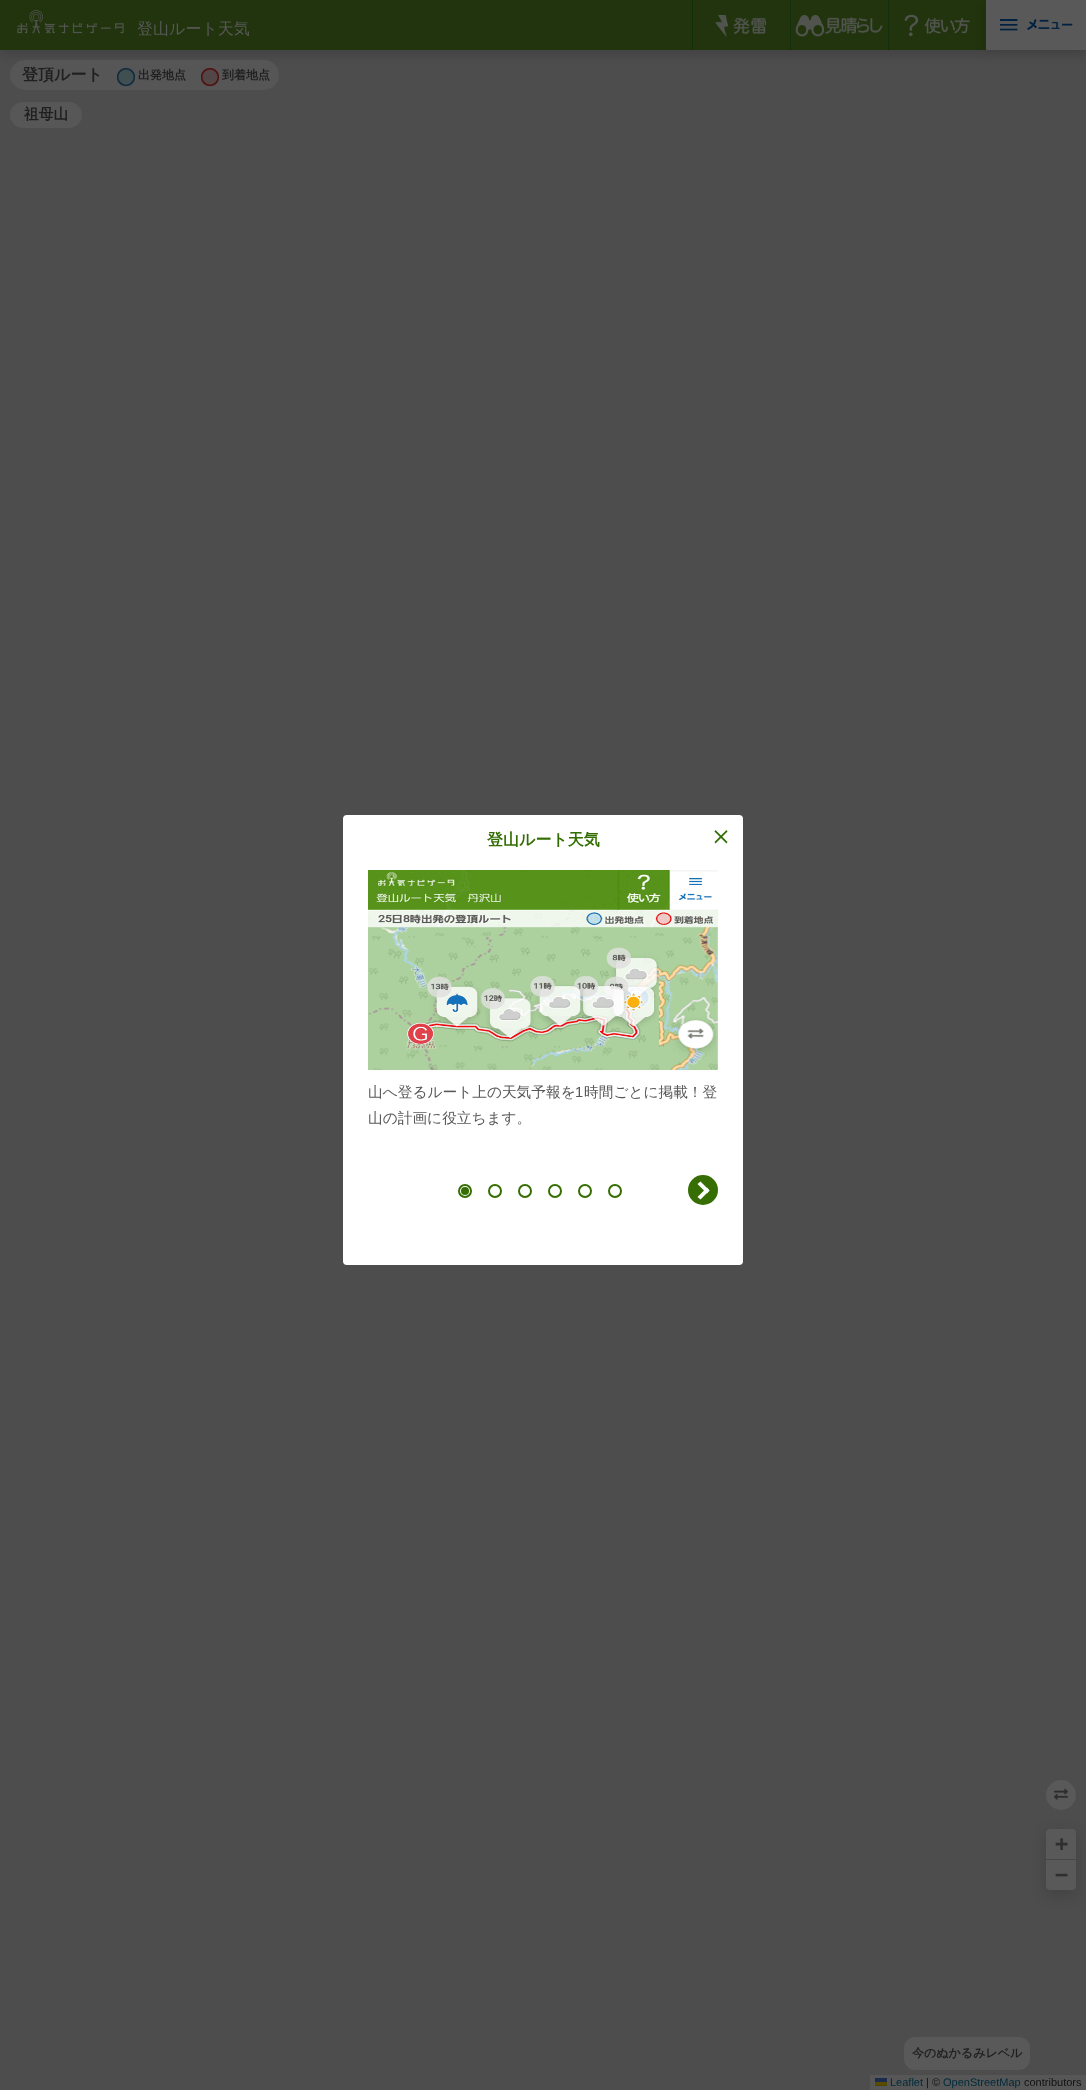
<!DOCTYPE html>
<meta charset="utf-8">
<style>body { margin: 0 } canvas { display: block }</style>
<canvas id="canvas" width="1086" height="2090"></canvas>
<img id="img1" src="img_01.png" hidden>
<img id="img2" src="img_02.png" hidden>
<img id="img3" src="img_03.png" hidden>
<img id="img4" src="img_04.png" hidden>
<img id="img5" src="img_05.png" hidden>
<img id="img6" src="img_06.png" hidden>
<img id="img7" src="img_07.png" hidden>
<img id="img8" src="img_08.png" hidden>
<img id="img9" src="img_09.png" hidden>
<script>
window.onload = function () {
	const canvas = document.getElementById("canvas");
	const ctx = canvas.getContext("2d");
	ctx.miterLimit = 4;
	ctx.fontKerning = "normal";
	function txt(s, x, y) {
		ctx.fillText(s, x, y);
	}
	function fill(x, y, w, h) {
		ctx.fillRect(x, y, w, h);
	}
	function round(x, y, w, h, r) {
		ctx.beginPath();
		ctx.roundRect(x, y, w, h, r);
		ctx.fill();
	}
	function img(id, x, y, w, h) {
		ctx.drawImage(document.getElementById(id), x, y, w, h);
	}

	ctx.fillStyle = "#4D4D4D";
	fill(0, 0, 1086, 2090);
	ctx.fillStyle = "rgba(10, 10, 10, 0.15)";
	ctx.filter = "blur(5px)";
	ctx.beginPath();
	ctx.rect(0, 5, 986, 50);
	ctx.fill();
	ctx.filter = "none";
	ctx.fillStyle = "#21340D";
	fill(0, 0, 986, 50);
	img("img1", 17, 10, 107, 24);
	ctx.fillStyle = "#122F0C";
	fill(692, 0, 1, 50);
	img("img2", 715, 14, 52, 23);
	fill(790, 0, 1, 50);
	img("img3", 795, 15, 88, 22);
	fill(888, 0, 1, 50);
	img("img4", 904, 14, 66, 23);
	ctx.fillStyle = "rgba(0, 0, 0, 0.15)";
	ctx.filter = "blur(5px)";
	ctx.beginPath();
	ctx.rect(986, 5, 100, 50);
	ctx.fill();
	ctx.filter = "none";
	ctx.fillStyle = "#595959";
	fill(986, 0, 100, 50);
	img("img5", 1000, 19, 73, 12);
	ctx.fillStyle = "rgba(89, 89, 89, 0.8)";
	round(10, 60, 269, 30, 15);
	img("img6", 117, 68, 18, 18);
	img("img7", 201, 68, 18, 18);
	ctx.fillStyle = "#575757";
	round(10, 102, 72, 26, 13);
	ctx.fillStyle = "#FFFFFF";
	round(343, 815, 400, 450, 4);
	ctx.fillStyle = "#326D01";
	ctx.beginPath();
	ctx.moveTo(715.5, 830);
	ctx.lineTo(727.5, 842);
	ctx.lineTo(726.5, 843.5);
	ctx.lineTo(714.5, 831.5);
	ctx.closePath();
	ctx.fill();
	ctx.beginPath();
	ctx.moveTo(714.5, 842);
	ctx.lineTo(726.5, 830);
	ctx.lineTo(727.5, 831.5);
	ctx.lineTo(715.5, 843.5);
	ctx.closePath();
	ctx.fill();
	img("img8", 368, 870, 350, 200);
	ctx.beginPath();
	ctx.arc(465, 1191, 6, 0, Math.PI * 2);
	ctx.strokeStyle = "#366E03";
	ctx.lineWidth = 2;
	ctx.stroke();
	ctx.fillStyle = "#366E03";
	ctx.beginPath();
	ctx.arc(465, 1191, 4, 0, Math.PI * 2);
	ctx.fill();
	ctx.beginPath();
	ctx.arc(495, 1191, 6, 0, Math.PI * 2);
	ctx.stroke();
	ctx.beginPath();
	ctx.arc(525, 1191, 6, 0, Math.PI * 2);
	ctx.stroke();
	ctx.beginPath();
	ctx.arc(555, 1191, 6, 0, Math.PI * 2);
	ctx.stroke();
	ctx.beginPath();
	ctx.arc(585, 1191, 6, 0, Math.PI * 2);
	ctx.stroke();
	ctx.beginPath();
	ctx.arc(615, 1191, 6, 0, Math.PI * 2);
	ctx.stroke();
	ctx.beginPath();
	ctx.arc(703, 1190, 15, 0, Math.PI * 2);
	ctx.fill();
	ctx.fillStyle = "#FFFFFF";
	ctx.beginPath();
	ctx.moveTo(700.5, 1181.5);
	ctx.lineTo(709.5, 1190.5);
	ctx.lineTo(707, 1193.5);
	ctx.lineTo(697.5, 1184);
	ctx.closePath();
	ctx.fill();
	ctx.beginPath();
	ctx.moveTo(707, 1187.5);
	ctx.lineTo(709.5, 1190.5);
	ctx.lineTo(700.5, 1199.5);
	ctx.lineTo(697.5, 1197);
	ctx.closePath();
	ctx.fill();
	ctx.fillStyle = "#595959";
	ctx.beginPath();
	ctx.arc(1061, 1795, 15, 0, Math.PI * 2);
	ctx.fill();
	img("img9", 1054, 1788, 14, 12);
	ctx.fillStyle = "rgba(0, 0, 0, 0.15)";
	ctx.filter = "blur(7.5px)";
	ctx.beginPath();
	ctx.roundRect(1046, 1834, 30, 61, 4);
	ctx.fill();
	ctx.filter = "none";
	ctx.fillStyle = "#595959";
	ctx.beginPath();
	ctx.roundRect(1046, 1829, 30, 31, [4, 4, 0, 0]);
	ctx.fill();
	ctx.fillStyle = "#474747";
	fill(1046, 1859, 30, 1);
	ctx.fillStyle = "#595959";
	ctx.beginPath();
	ctx.roundRect(1046, 1860, 30, 30, [0, 0, 4, 4]);
	ctx.fill();
	ctx.fillStyle = "#575757";
	fill(870, 2075, 216, 15);
	ctx.fillStyle = "#1B2B4F";
	fill(875, 2078, 12, 4);
	ctx.fillStyle = "#594B00";
	fill(875, 2082, 12, 3);
	ctx.fillStyle = "#4E4200";
	fill(875, 2085, 12, 1);
	ctx.fillStyle = "#595959";
	round(904, 2037, 126, 33, 11);
	ctx.font = "500 16px WenQuanYi Zen Hei";
	ctx.fillStyle = "#585858";
	txt("登山ルート天気", 137, 34);
	ctx.font = "bold 16px WenQuanYi Zen Hei";
	ctx.fillStyle = "#1F1F1F";
	txt("登頂ルート", 22, 80);
	ctx.font = "bold 12px WenQuanYi Zen Hei";
	txt("出発地点", 138, 79);
	txt("到着地点", 222, 79);
	ctx.font = "bold 14.7px WenQuanYi Zen Hei";
	txt("祖母山", 24, 119);
	ctx.font = "bold 16px WenQuanYi Zen Hei";
	ctx.fillStyle = "#326D01";
	txt("登山ルート天気", 487, 845);
	ctx.font = "500 14.7px WenQuanYi Zen Hei";
	ctx.fillStyle = "#585858";
	txt("山へ登るルート上の天気予報を", 368, 1097);
	ctx.font = "14.7px Liberation Sans";
	txt("1", 575, 1097);
	ctx.font = "500 14.7px WenQuanYi Zen Hei";
	txt("時間ごとに掲載！登", 584, 1097);
	txt("山の計画に役立ちます。", 368, 1123);
	ctx.font = "bold 22px DejaVu Sans Mono";
	ctx.fillStyle = "#2F2F2F";
	txt("+", 1055, 1851);
	txt("−", 1055, 1882);
	ctx.font = "11px Liberation Sans";
	ctx.fillStyle = "#002A3B";
	txt("Leaflet", 890, 2086);
	ctx.fillStyle = "#121212";
	txt("| ©", 926, 2086);
	ctx.fillStyle = "#002A3B";
	txt("OpenStreetMap", 943, 2086);
	ctx.fillStyle = "#121212";
	txt("contributors", 1024, 2086);
	ctx.font = "bold 12px WenQuanYi Zen Hei";
	ctx.fillStyle = "#1F1F1F";
	txt("今のぬかるみレベル", 912, 2057);
};
</script>
